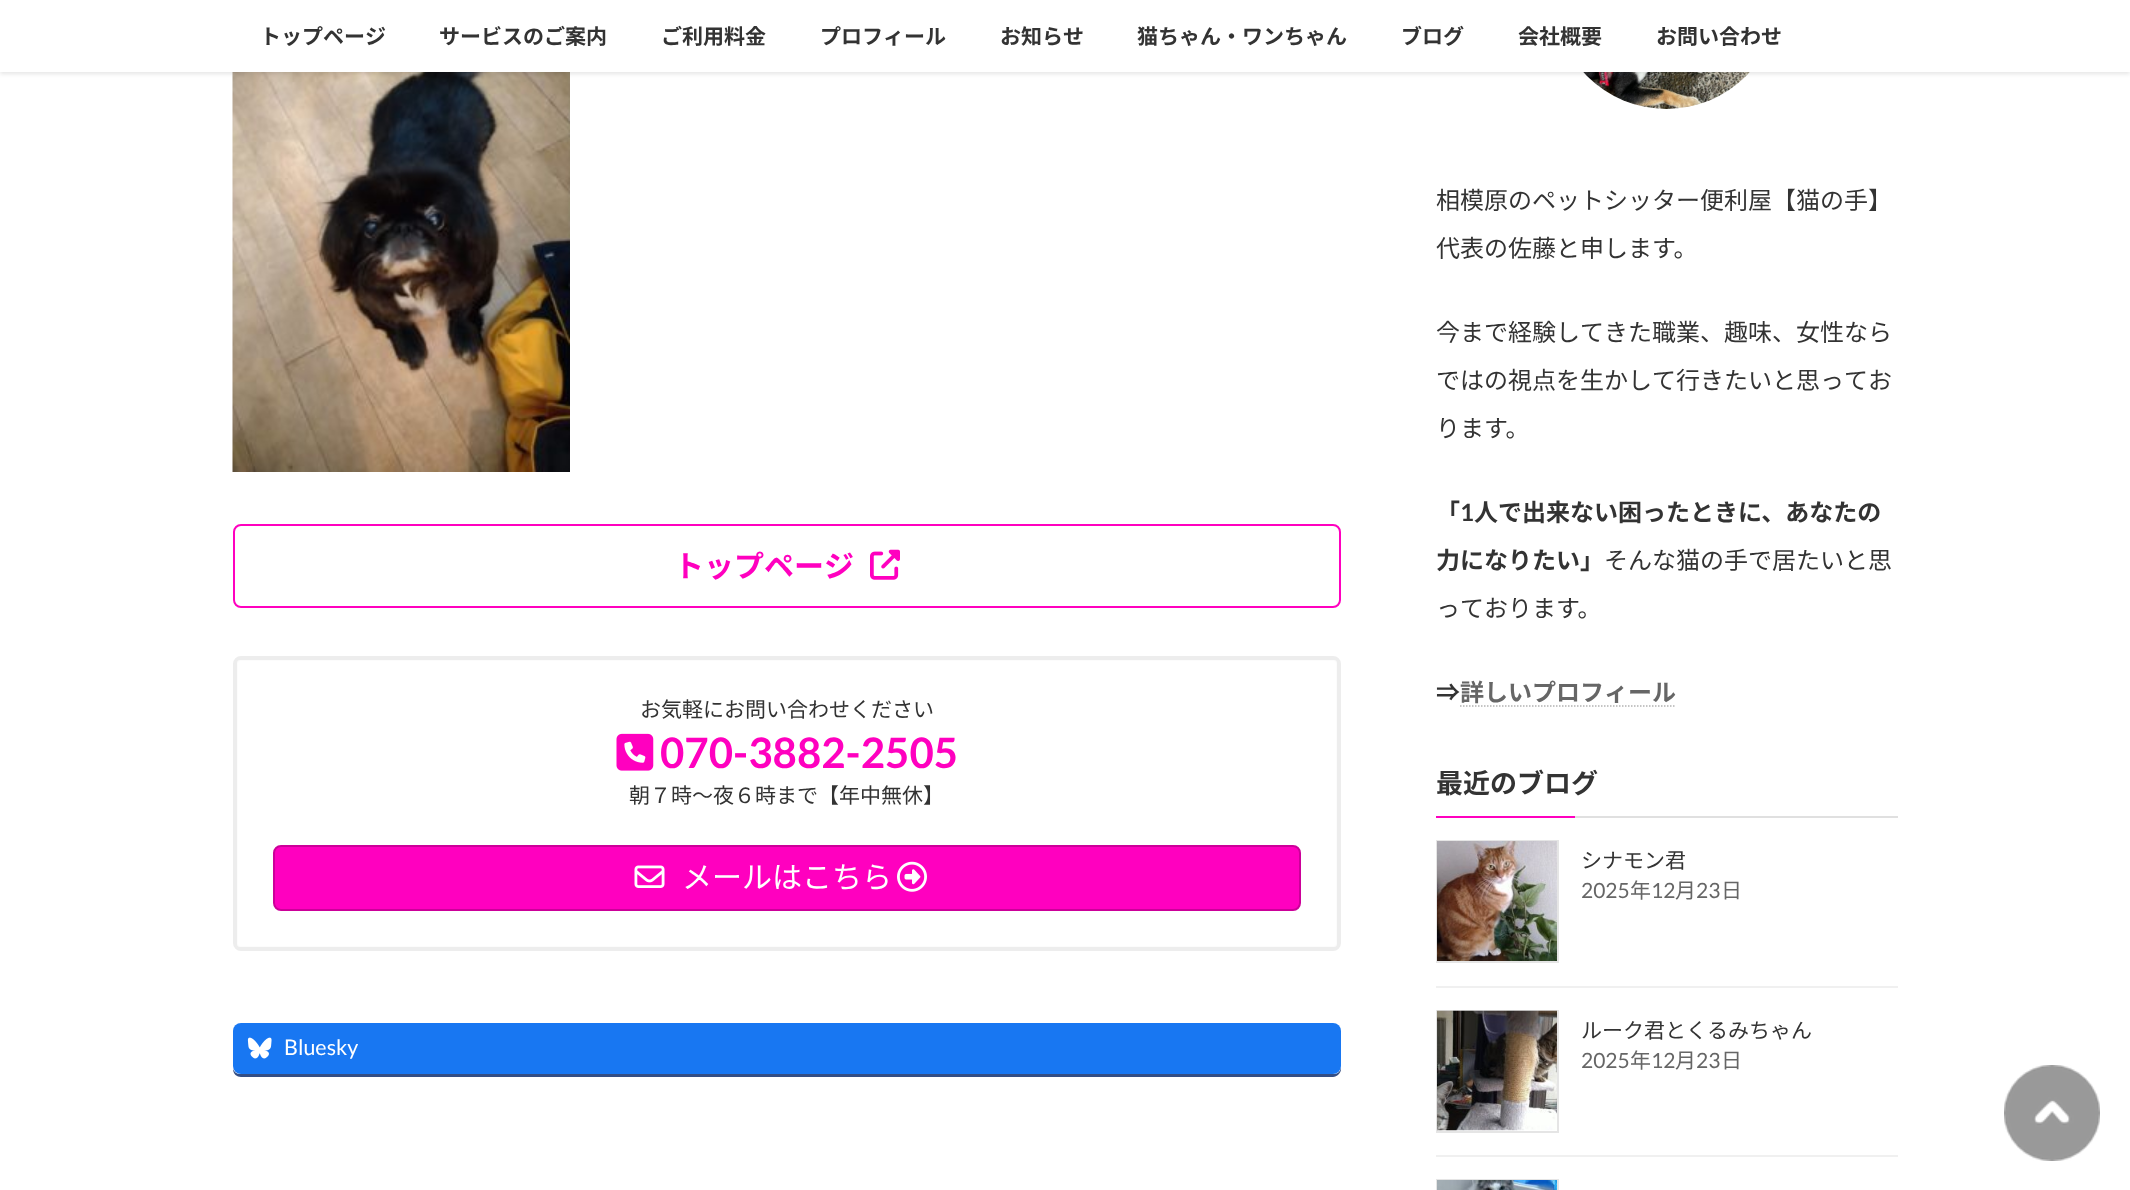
<!DOCTYPE html>
<meta charset="utf-8">
<style>body { margin: 0 } canvas { display: block }</style>
<canvas id="canvas" width="2130" height="1190"></canvas>
<img id="img1" src="img_01.png" hidden>
<img id="img2" src="img_07.png" hidden>
<img id="img3" src="img_02.png" hidden>
<img id="img4" src="img_03.png" hidden>
<img id="img5" src="img_04.png" hidden>
<img id="img6" src="img_05.png" hidden>
<img id="img7" src="img_06.png" hidden>
<img id="img8" src="img_08.png" hidden>
<img id="img9" src="img_09.png" hidden>
<img id="img10" src="img_10.png" hidden>
<img id="img11" src="img_11.png" hidden>
<script>
window.onload = function () {
	const canvas = document.getElementById("canvas");
	const ctx = canvas.getContext("2d");
	ctx.miterLimit = 4;
	ctx.fontKerning = "normal";
	function txt(s, x, y) {
		ctx.fillText(s, x, y);
	}
	function fill(x, y, w, h) {
		ctx.fillRect(x, y, w, h);
	}
	function round(x, y, w, h, r) {
		ctx.beginPath();
		ctx.roundRect(x, y, w, h, r);
		ctx.fill();
	}
	function img(id, x, y, w, h) {
		ctx.drawImage(document.getElementById(id), x, y, w, h);
	}

	ctx.fillStyle = "#FFFFFF";
	fill(0, 0, 2130, 1190);
	img("img1", 232, 72, 338, 400);
	img("img2", 1583, 72, 167, 37);
	ctx.fillStyle = "rgba(0, 0, 0, 0.1)";
	ctx.filter = "blur(2px)";
	ctx.beginPath();
	ctx.rect(0, 2, 2130, 72);
	ctx.fill();
	ctx.filter = "none";
	ctx.fillStyle = "#FFFFFF";
	fill(0, 0, 2130, 72);
	ctx.beginPath();
	ctx.roundRect(234, 525, 1106, 82, 7);
	ctx.strokeStyle = "#FF00BF";
	ctx.lineWidth = 2;
	ctx.stroke();
	img("img3", 870, 549, 30, 31);
	ctx.beginPath();
	ctx.roundRect(235.5, 658.5, 1103, 290, 5.5);
	ctx.strokeStyle = "#EDEDED";
	ctx.lineWidth = 5;
	ctx.stroke();
	ctx.fillStyle = "rgba(255, 255, 255, 0.8)";
	ctx.beginPath();
	ctx.moveTo(240, 660);
	ctx.bezierCurveTo(238, 660, 237, 661, 237, 663);
	ctx.lineTo(237, 944);
	ctx.bezierCurveTo(237, 946, 238, 947, 240, 947);
	ctx.lineTo(1334, 947);
	ctx.bezierCurveTo(1336, 947, 1337, 946, 1337, 944);
	ctx.lineTo(1337, 663);
	ctx.bezierCurveTo(1337, 661, 1336, 660, 1334, 660);
	ctx.closePath();
	ctx.moveTo(239, 662);
	ctx.lineTo(239, 945);
	ctx.lineTo(1335, 945);
	ctx.lineTo(1335, 662);
	ctx.closePath();
	ctx.fill("evenodd");
	img("img4", 616, 733, 38, 38);
	ctx.fillStyle = "#FF00BF";
	ctx.beginPath();
	ctx.roundRect(274, 846, 1026, 64, 7);
	ctx.fill();
	ctx.strokeStyle = "#CC0099";
	ctx.lineWidth = 2;
	ctx.stroke();
	img("img5", 634, 865, 31, 23);
	img("img6", 897, 861, 30, 31);
	ctx.fillStyle = "#344E84";
	ctx.beginPath();
	ctx.moveTo(233, 1069);
	ctx.bezierCurveTo(233, 1074, 237, 1077, 241, 1077);
	ctx.lineTo(1333, 1077);
	ctx.bezierCurveTo(1337, 1077, 1341, 1073, 1341, 1069);
	ctx.lineTo(1341, 1066);
	ctx.bezierCurveTo(1341, 1071, 1338, 1074, 1334, 1074);
	ctx.lineTo(240, 1074);
	ctx.bezierCurveTo(237, 1074, 234, 1072, 233, 1069);
	ctx.closePath();
	ctx.fill();
	ctx.fillStyle = "#1877F2";
	round(233, 1023, 1108, 51, 8);
	img("img7", 247, 1037, 25, 22);
	ctx.beginPath();
	ctx.moveTo(1460, 706);
	ctx.lineTo(1675.5, 706);
	ctx.strokeStyle = "#B3B3B3";
	ctx.lineWidth = 1.5;
	ctx.setLineDash([1.5, 1.5]);
	ctx.stroke();
	ctx.fillStyle = "#E0E0E0";
	fill(1575, 816, 323, 2);
	ctx.fillStyle = "#FF00BF";
	fill(1436, 816, 139, 2);
	ctx.fillStyle = "#F0F0F0";
	fill(1436, 986, 462, 2);
	ctx.strokeStyle = "#E5E5E5";
	ctx.lineWidth = 2;
	ctx.setLineDash([]);
	ctx.strokeRect(1437, 841, 121, 121);
	img("img8", 1437, 841, 120, 120);
	fill(1436, 1155, 462, 2);
	ctx.strokeRect(1437, 1011, 121, 121);
	img("img9", 1437, 1010, 120, 121);
	ctx.strokeRect(1437, 1180, 121, 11);
	img("img10", 1437, 1180, 120, 10);
	img("img11", 2004, 1065, 96, 96);
	ctx.font = "bold 21px Noto Sans JP";
	ctx.fillStyle = "#333333";
	txt("トップページ", 260, 44);
	txt("サービスのご案内", 439, 44);
	txt("ご利用料金", 661, 44);
	txt("プロフィール", 820, 44);
	txt("お知らせ", 1000, 44);
	txt("猫ちゃん・ワンちゃん", 1137, 44);
	txt("ブログ", 1401, 44);
	txt("会社概要", 1518, 44);
	txt("お問い合わせ", 1656, 44);
	ctx.font = "bold 30px Noto Sans JP";
	ctx.fillStyle = "#FF00BF";
	txt("トップページ", 674, 577);
	ctx.font = "21px Noto Sans JP";
	ctx.fillStyle = "#333333";
	txt("お気軽にお問い合わせください", 640, 717);
	ctx.font = "bold 42px Lato";
	ctx.fillStyle = "#FF00BF";
	txt("070-3882-2505", 660, 768);
	ctx.font = "21px Noto Sans JP";
	ctx.fillStyle = "#333333";
	txt("朝７時～夜６時まで【年中無休】", 629, 803);
	ctx.font = "30px Noto Sans JP";
	ctx.fillStyle = "#FFFFFF";
	txt("メールはこちら", 682, 888);
	ctx.font = "21.5px Lato";
	txt("Bluesky", 284, 1055);
	ctx.font = "24px Noto Sans JP";
	ctx.fillStyle = "#333333";
	txt("相模原のペットシッター便利屋【猫の手】", 1436, 209);
	txt("代表の佐藤と申します。", 1436, 257);
	txt("今まで経験してきた職業、趣味、女性なら", 1436, 341);
	txt("ではの視点を生かして行きたいと思ってお", 1436, 389);
	txt("ります。", 1436, 437);
	ctx.font = "bold 24px Noto Sans JP";
	txt("「", 1436, 521);
	ctx.font = "bold 24px Lato";
	txt("1", 1460, 521);
	ctx.font = "bold 24px Noto Sans JP";
	txt("人で出来ない困ったときに、あなたの", 1474, 521);
	txt("力になりたい」", 1436, 569);
	ctx.font = "24px Noto Sans JP";
	txt("そんな猫の手で居たいと思", 1604, 569);
	txt("っております。", 1436, 617);
	ctx.font = "bold 24px Noto Sans JP";
	txt("⇒", 1436, 701);
	ctx.fillStyle = "#666666";
	txt("詳しいプロフィール", 1460, 701);
	ctx.font = "bold 27px Noto Sans JP";
	ctx.fillStyle = "#333333";
	txt("最近のブログ", 1436, 793);
	ctx.font = "21px Noto Sans JP";
	txt("シナモン君", 1581, 868);
	ctx.font = "21px Lato";
	ctx.fillStyle = "#666666";
	txt("2025", 1581, 898);
	ctx.font = "21px Noto Sans JP";
	txt("年", 1630, 898);
	ctx.font = "21px Lato";
	txt("12", 1651, 898);
	ctx.font = "21px Noto Sans JP";
	txt("月", 1675, 898);
	ctx.font = "21px Lato";
	txt("23", 1696, 898);
	ctx.font = "21px Noto Sans JP";
	txt("日", 1721, 898);
	ctx.fillStyle = "#333333";
	txt("ルーク君とくるみちゃん", 1581, 1038);
	ctx.font = "21px Lato";
	ctx.fillStyle = "#666666";
	txt("2025", 1581, 1068);
	ctx.font = "21px Noto Sans JP";
	txt("年", 1630, 1068);
	ctx.font = "21px Lato";
	txt("12", 1651, 1068);
	ctx.font = "21px Noto Sans JP";
	txt("月", 1675, 1068);
	ctx.font = "21px Lato";
	txt("23", 1696, 1068);
	ctx.font = "21px Noto Sans JP";
	txt("日", 1721, 1068);
};
</script>
